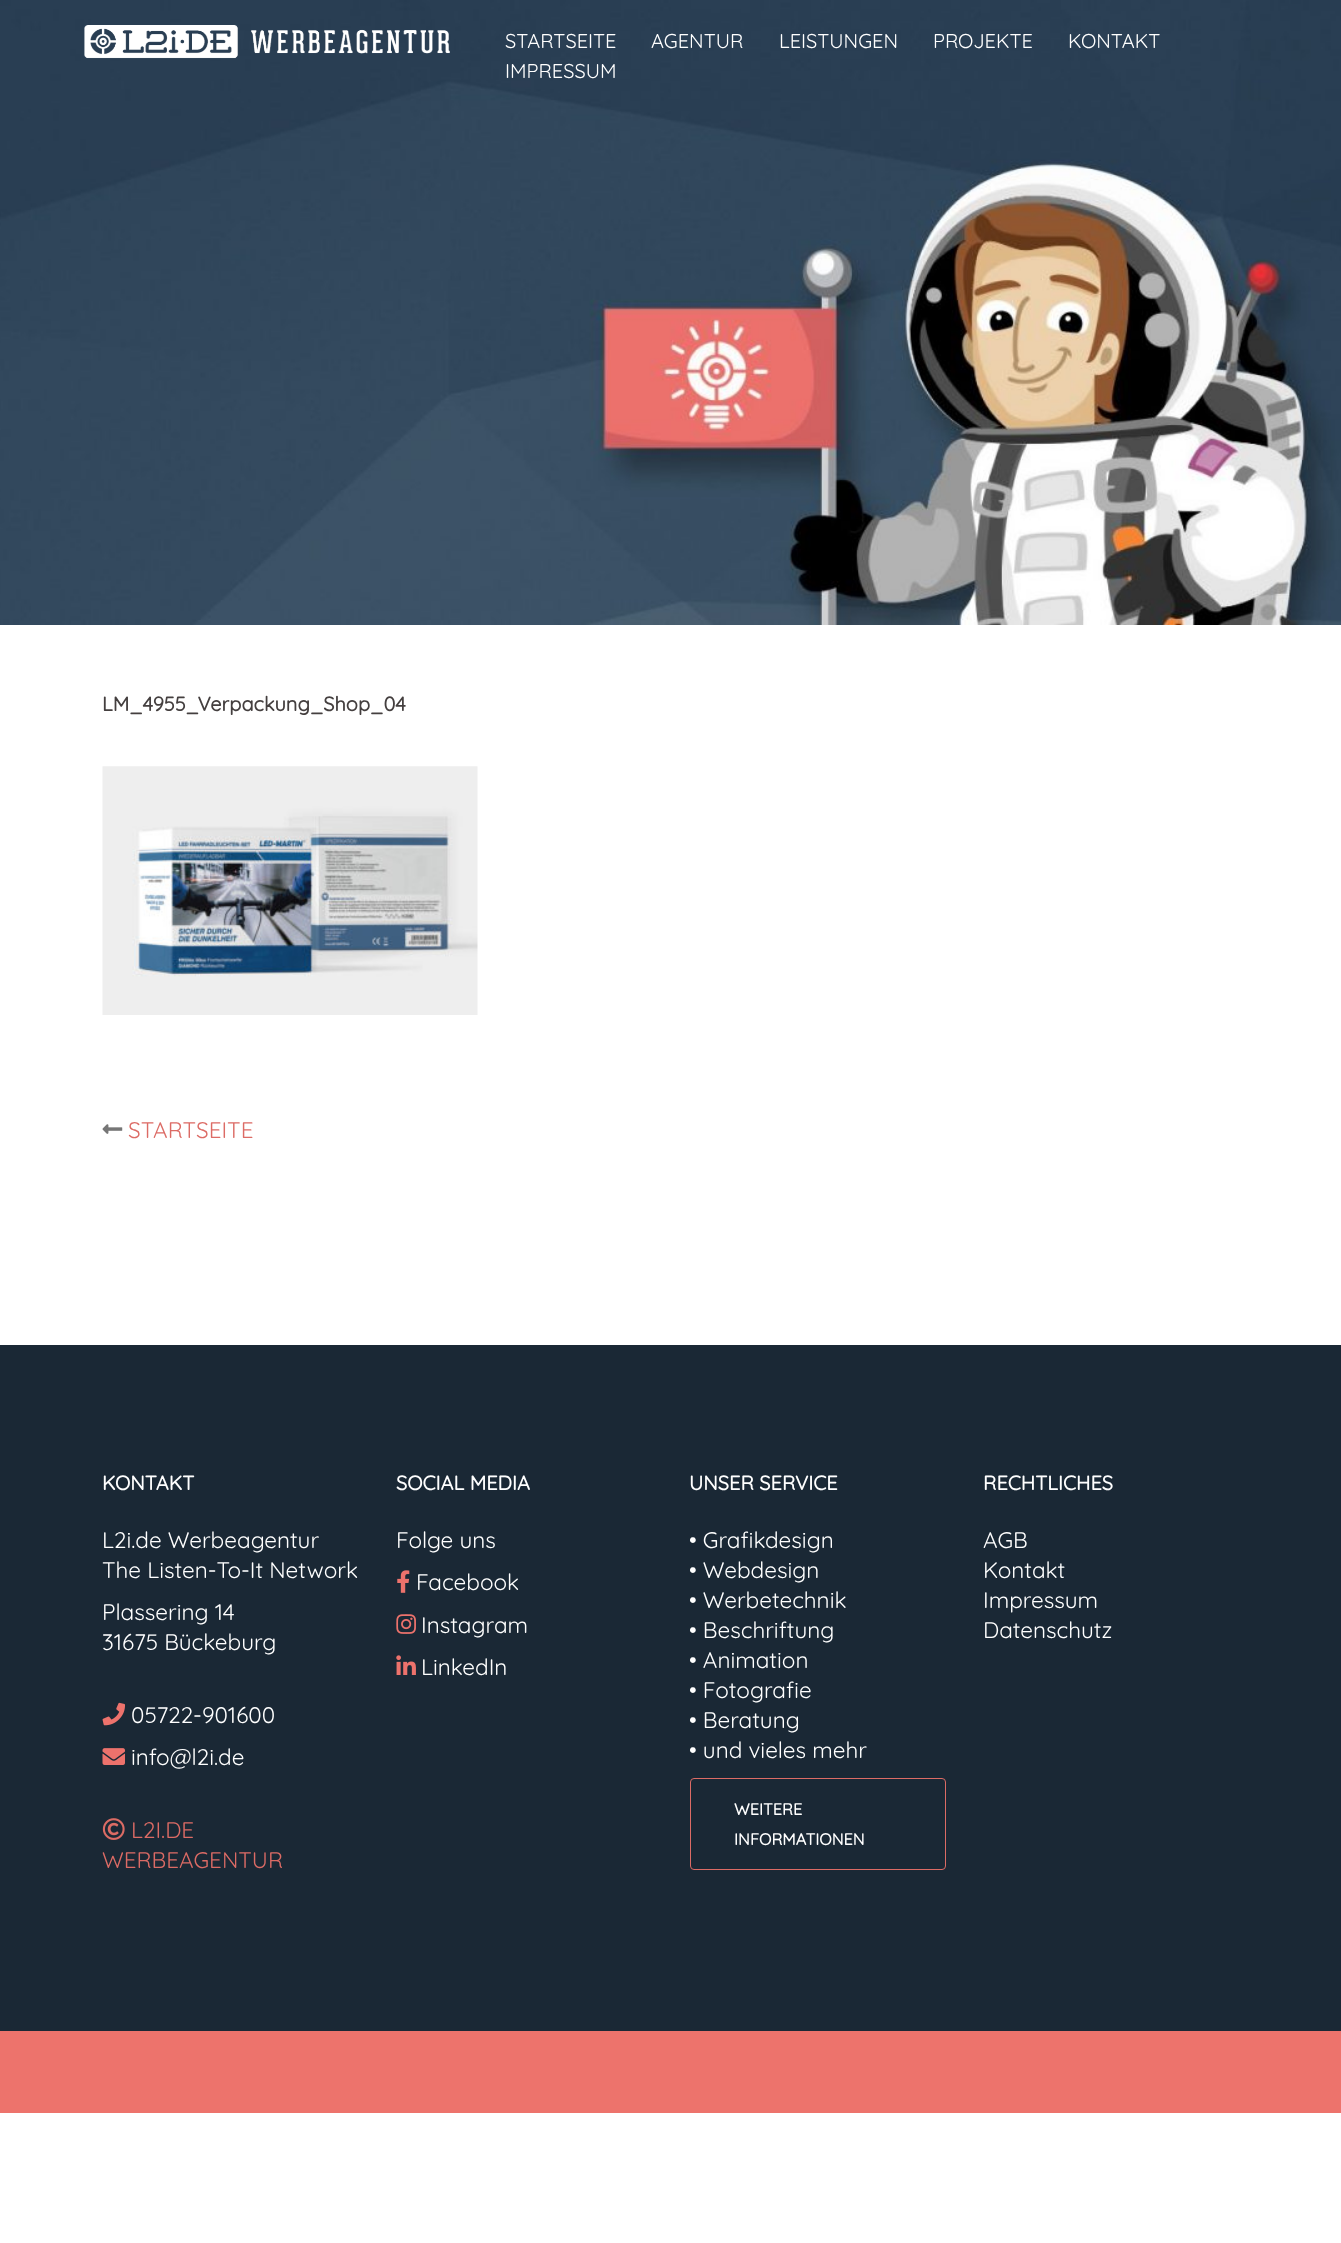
<!DOCTYPE html>
<meta charset="utf-8">
<style>body { margin: 0 } canvas { display: block }</style>
<canvas id="canvas" width="1341" height="2243"></canvas>
<img id="img1" src="img_01.png" hidden>
<img id="img2" src="img_02.png" hidden>
<img id="img3" src="img_03.png" hidden>
<img id="img4" src="img_04.png" hidden>
<img id="img5" src="img_05.png" hidden>
<img id="img6" src="img_06.png" hidden>
<img id="img7" src="img_07.png" hidden>
<img id="img8" src="img_08.png" hidden>
<img id="img9" src="img_09.png" hidden>
<img id="img10" src="img_10.png" hidden>
<script>
window.onload = function () {
	const canvas = document.getElementById("canvas");
	const ctx = canvas.getContext("2d");
	ctx.miterLimit = 4;
	ctx.fontKerning = "normal";
	function txt(s, x, y) {
		ctx.fillText(s, x, y);
	}
	function fill(x, y, w, h) {
		ctx.fillRect(x, y, w, h);
	}
	function img(id, x, y, w, h) {
		ctx.drawImage(document.getElementById(id), x, y, w, h);
	}

	ctx.fillStyle = "#FFFFFF";
	fill(0, 0, 1341, 2243);
	img("img1", 0, 0, 1341, 625);
	img("img2", 84, 25, 366, 34);
	img("img3", 102, 766, 376, 249);
	img("img4", 102, 1124, 21, 10);
	ctx.fillStyle = "#1A2835";
	fill(0, 1345, 1341, 686);
	img("img5", 102, 1702, 23, 24);
	img("img6", 102, 1748, 23, 17);
	img("img7", 102, 1818, 23, 22);
	img("img8", 397, 1570, 13, 23);
	img("img9", 396, 1614, 20, 20);
	img("img10", 396, 1655, 20, 20);
	ctx.beginPath();
	ctx.roundRect(690.5, 1778.5, 255, 91, 3.5);
	ctx.strokeStyle = "#DC6B65";
	ctx.stroke();
	ctx.fillStyle = "#ED736C";
	fill(0, 2031, 1341, 82);
	ctx.font = "300 20px Quicksand";
	ctx.fillStyle = "#FFFFFF";
	txt("STARTSEITE", 505, 48);
	txt("AGENTUR", 651, 48);
	txt("LEISTUNGEN", 779, 48);
	txt("PROJEKTE", 933, 48);
	txt("KONTAKT", 1068, 48);
	txt("IMPRESSUM", 505, 78);
	ctx.font = "bold 20px Quicksand";
	ctx.fillStyle = "#443F3F";
	txt("LM_4955_Verpackung_Shop_04", 102, 711);
	ctx.font = "300 22.5px Quicksand";
	ctx.fillStyle = "#DC6B65";
	txt("STARTSEITE", 128, 1138);
	ctx.font = "bold 20px Quicksand";
	ctx.fillStyle = "#FFFFFF";
	txt("KONTAKT", 102, 1490);
	ctx.font = "300 22.5px Quicksand";
	txt("L2i.de Werbeagentur", 102, 1548);
	txt("The Listen-To-It Network", 102, 1578);
	txt("Plassering 14", 102, 1620);
	txt("31675 Bückeburg", 102, 1650);
	txt("05722-901600", 131, 1723);
	txt("info@l2i.de", 131, 1765);
	ctx.fillStyle = "#DC6B65";
	txt("L2I.DE", 131, 1838);
	txt("WERBEAGENTUR", 102, 1868);
	ctx.font = "bold 20px Quicksand";
	ctx.fillStyle = "#FFFFFF";
	txt("SOCIAL MEDIA", 396, 1490);
	ctx.font = "300 22.5px Quicksand";
	txt("Folge uns", 396, 1548);
	txt("Facebook", 416, 1590);
	txt("Instagram", 421, 1633);
	txt("LinkedIn", 421, 1675);
	ctx.font = "bold 20px Quicksand";
	txt("UNSER SERVICE", 689, 1490);
	ctx.font = "300 22.5px Quicksand";
	txt("• Grafikdesign", 689, 1548);
	txt("• Webdesign", 689, 1578);
	txt("• Werbetechnik", 689, 1608);
	txt("• Beschriftung", 689, 1638);
	txt("• Animation", 689, 1668);
	txt("• Fotografie", 689, 1698);
	txt("• Beratung", 689, 1728);
	txt("• und vieles mehr", 689, 1758);
	ctx.font = "bold 16.25px Quicksand";
	txt("WEITERE", 734, 1815);
	txt("INFORMATIONEN", 734, 1845);
	ctx.font = "bold 20px Quicksand";
	txt("RECHTLICHES", 983, 1490);
	ctx.font = "300 22.5px Quicksand";
	txt("AGB", 983, 1548);
	txt("Kontakt", 983, 1578);
	txt("Impressum", 983, 1608);
	txt("Datenschutz", 983, 1638);
};
</script>
